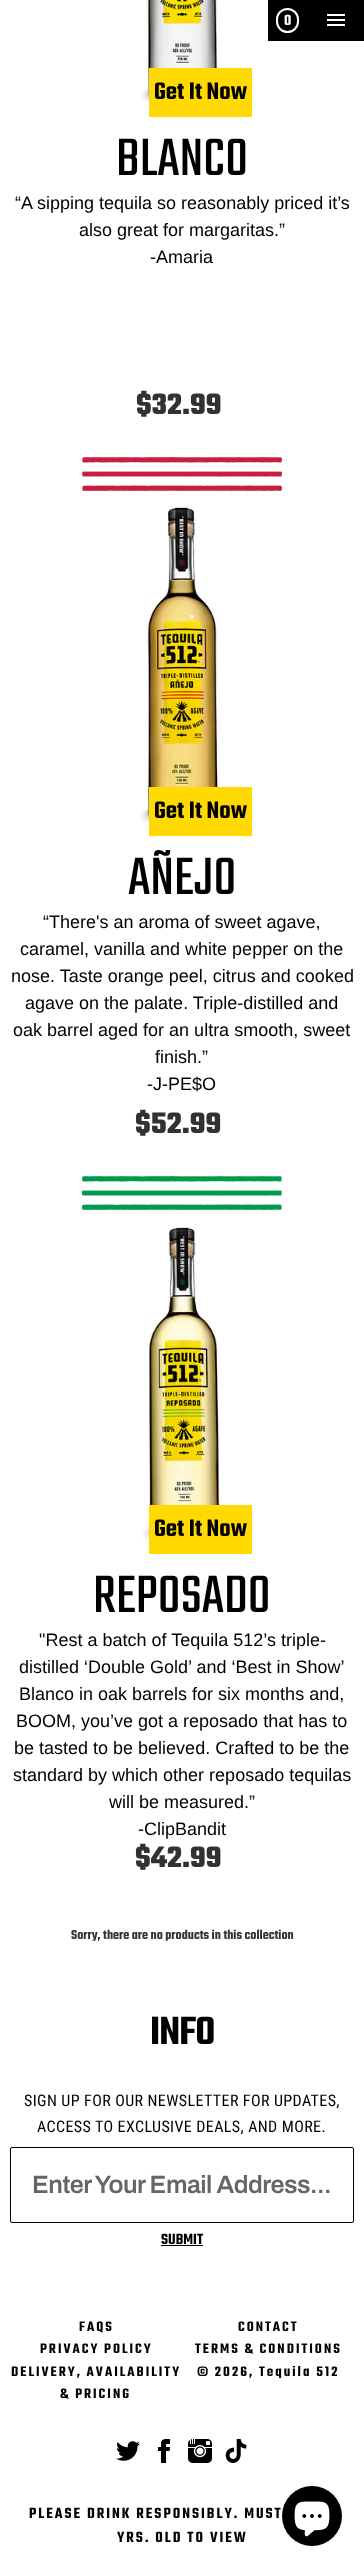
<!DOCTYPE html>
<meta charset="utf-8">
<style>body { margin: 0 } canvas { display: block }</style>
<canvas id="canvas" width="364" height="2567"></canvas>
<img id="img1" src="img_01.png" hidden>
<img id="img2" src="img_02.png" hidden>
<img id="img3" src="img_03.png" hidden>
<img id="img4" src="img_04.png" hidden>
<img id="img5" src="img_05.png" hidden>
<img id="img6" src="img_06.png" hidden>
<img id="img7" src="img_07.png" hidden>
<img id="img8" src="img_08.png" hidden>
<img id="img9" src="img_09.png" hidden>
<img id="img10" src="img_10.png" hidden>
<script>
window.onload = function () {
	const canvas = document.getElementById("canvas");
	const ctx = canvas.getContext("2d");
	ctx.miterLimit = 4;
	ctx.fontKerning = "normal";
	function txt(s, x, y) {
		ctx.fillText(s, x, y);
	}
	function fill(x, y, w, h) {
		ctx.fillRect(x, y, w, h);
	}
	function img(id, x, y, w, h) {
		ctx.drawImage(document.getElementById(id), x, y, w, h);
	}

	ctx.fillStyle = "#FFFFFF";
	fill(0, 0, 364, 2567);
	ctx.fillStyle = "#000000";
	fill(268, 0, 96, 41);
	ctx.beginPath();
	ctx.roundRect(277, 9, 21, 23, 10.5);
	ctx.strokeStyle = "#FFFFFF";
	ctx.lineWidth = 2;
	ctx.stroke();
	ctx.fillStyle = "#FFFFFF";
	fill(327, 19, 18, 2);
	fill(327, 14, 18, 2);
	fill(327, 24, 18, 2);
	img("img1", 140, 0, 86, 104);
	ctx.fillStyle = "#FFD900";
	fill(149, 68, 103, 49);
	img("img2", 82, 457, 200, 34);
	img("img3", 140, 507, 86, 318);
	fill(149, 787, 103, 49);
	img("img4", 82, 1176, 200, 34);
	img("img5", 142, 1227, 85, 315);
	fill(149, 1505, 103, 49);
	ctx.beginPath();
	ctx.roundRect(10.5, 2147.5, 343, 75, 1.5);
	ctx.strokeStyle = "#000000";
	ctx.lineWidth = 1;
	ctx.stroke();
	ctx.fillStyle = "#000000";
	fill(161, 2245, 42, 1);
	img("img6", 116, 2441, 24, 20);
	img("img7", 158, 2439, 12, 24);
	img("img8", 188, 2439, 24, 24);
	img("img9", 225, 2439, 22, 24);
	ctx.beginPath();
	ctx.arc(312, 2516, 30, 0, Math.PI * 2);
	ctx.fill();
	img("img10", 294, 2501, 36, 36);
	ctx.font = "600 16px Teko";
	ctx.fillStyle = "#FFFFFF";
	txt("0", 284, 25);
	ctx.font = "600 26px Teko";
	ctx.fillStyle = "#000000";
	txt("Get It Now", 154, 99);
	ctx.font = "58px Teko";
	txt("BLANCO", 116, 175);
	ctx.font = "18px Liberation Sans";
	txt("“A sipping tequila so reasonably priced it’s", 15, 209);
	txt("also great for margaritas.”", 79, 236);
	txt("-Amaria", 150, 263);
	ctx.font = "bold 32px Teko";
	ctx.fillStyle = "#333232";
	txt("$32.99", 136, 414);
	ctx.font = "600 26px Teko";
	ctx.fillStyle = "#000000";
	txt("Get It Now", 154, 818);
	ctx.font = "58px Teko";
	txt("AÑEJO", 128, 894);
	ctx.font = "18px Liberation Sans";
	txt("“There's an aroma of sweet agave,", 43, 928);
	txt("caramel, vanilla and white pepper on the", 20, 955);
	txt("nose. Taste orange peel, citrus and cooked", 11, 982);
	txt("agave on the palate. Triple-distilled and", 25, 1009);
	txt("oak barrel aged for an ultra smooth, sweet", 13, 1036);
	txt("finish.”", 155, 1063);
	txt("-J-PE$O", 147, 1090);
	ctx.font = "bold 32px Teko";
	ctx.fillStyle = "#333232";
	txt("$52.99", 135, 1133);
	ctx.font = "600 26px Teko";
	ctx.fillStyle = "#000000";
	txt("Get It Now", 154, 1536);
	ctx.font = "58px Teko";
	txt("REPOSADO", 93, 1612);
	ctx.font = "18px Liberation Sans";
	txt("\"Rest a batch of Tequila 512’s triple-", 39, 1646);
	txt("distilled ‘Double Gold’ and ‘Best in Show’", 19, 1673);
	txt("Blanco in oak barrels for six months and,", 19, 1700);
	txt("BOOM, you’ve got a reposado that has to", 16, 1727);
	txt("be tasted to be believed. Crafted to be the", 14, 1754);
	txt("standard by which other reposado tequilas", 13, 1781);
	txt("will be measured.”", 109, 1808);
	txt("-ClipBandit", 138, 1835);
	ctx.font = "bold 32px Teko";
	ctx.fillStyle = "#333232";
	txt("$42.99", 135, 1867);
	ctx.font = "600 14px Teko";
	txt("Sorry, there are no products in this collection", 71, 1939);
	ctx.letterSpacing = "-1px";
	ctx.font = "600 43px Teko";
	ctx.fillStyle = "#000000";
	txt("INFO", 150, 2044);
	ctx.letterSpacing = "0.4px";
	ctx.font = "16px Roboto Condensed";
	txt("SIGN UP FOR OUR NEWSLETTER FOR UPDATES,", 24, 2106);
	txt("ACCESS TO EXCLUSIVE DEALS, AND MORE.", 37, 2132);
	ctx.letterSpacing = "-0.5px";
	ctx.font = "600 25px Archivo";
	ctx.fillStyle = "#666666";
	txt("Enter Your Email Address...", 32, 2193);
	ctx.letterSpacing = "0px";
	ctx.font = "600 16px Teko";
	ctx.fillStyle = "#000000";
	txt("SUBMIT", 161, 2244);
	ctx.letterSpacing = "2px";
	ctx.font = "600 15px Teko";
	txt("FAQS", 79, 2331);
	txt("CONTACT", 238, 2331);
	txt("PRIVACY POLICY", 40, 2353);
	txt("TERMS & CONDITIONS", 195, 2353);
	txt("DELIVERY, AVAILABILITY", 11, 2376);
	txt("& PRICING", 60, 2398);
	txt("© 2026, Tequila 512", 197, 2376);
	ctx.font = "600 16px Teko";
	txt("PLEASE DRINK RESPONSIBLY. MUST", 29, 2518);
	txt("YRS. OLD TO VIEW", 117, 2542);
};
</script>
